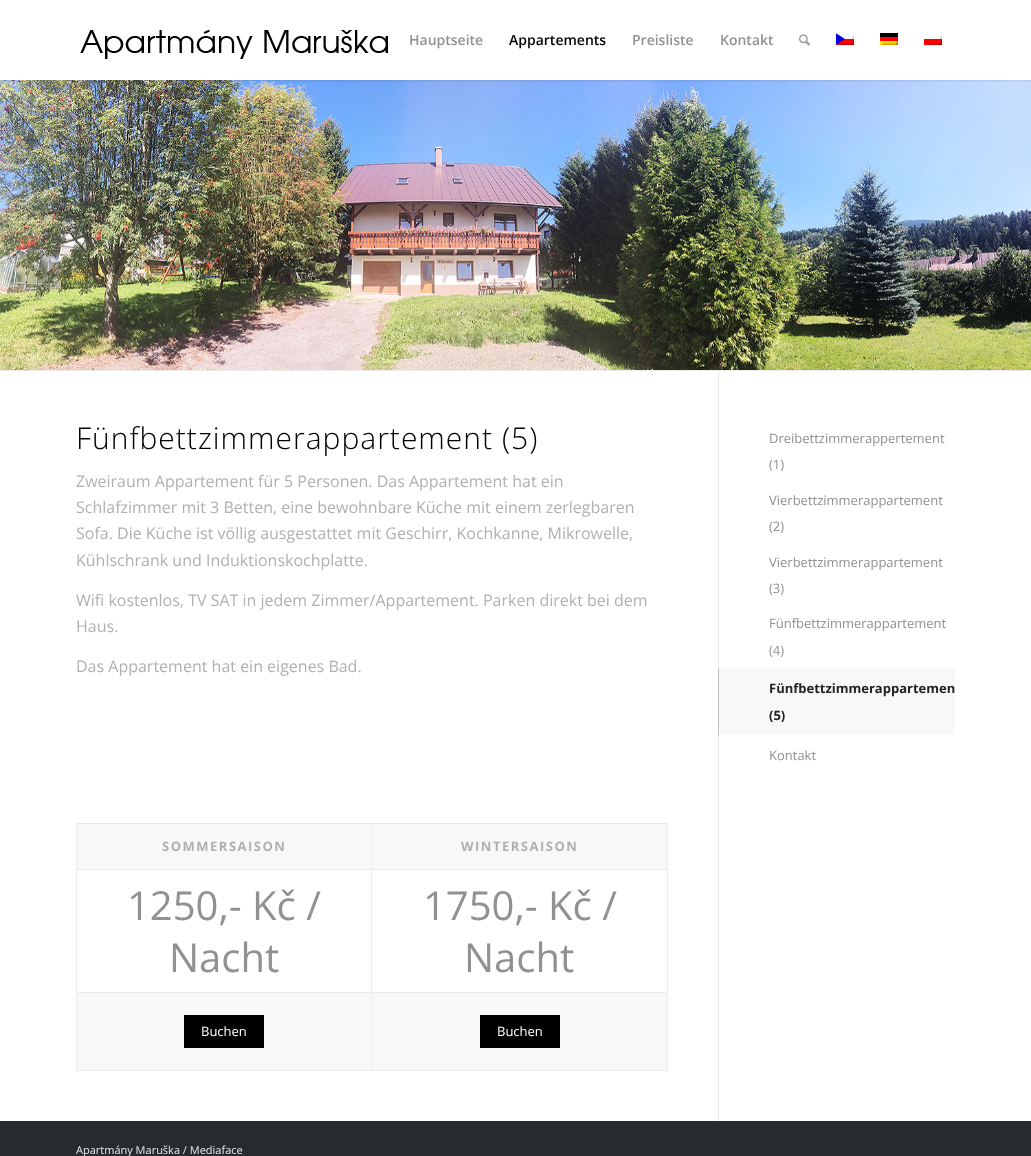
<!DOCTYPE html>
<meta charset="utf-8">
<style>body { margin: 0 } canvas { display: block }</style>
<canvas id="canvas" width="1031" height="1156"></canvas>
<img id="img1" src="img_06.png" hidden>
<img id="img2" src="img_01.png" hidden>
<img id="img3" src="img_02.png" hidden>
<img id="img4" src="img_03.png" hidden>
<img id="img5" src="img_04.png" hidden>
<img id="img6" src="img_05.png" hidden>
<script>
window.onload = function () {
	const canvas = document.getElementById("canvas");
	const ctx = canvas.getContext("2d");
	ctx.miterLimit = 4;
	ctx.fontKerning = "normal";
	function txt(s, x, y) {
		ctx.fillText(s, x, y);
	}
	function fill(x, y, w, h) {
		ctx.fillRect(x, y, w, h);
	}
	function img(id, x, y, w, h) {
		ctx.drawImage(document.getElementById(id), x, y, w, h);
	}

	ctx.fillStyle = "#FFFFFF";
	fill(0, 0, 1031, 1156);
	img("img1", 0, 80, 1031, 290);
	ctx.fillStyle = "rgba(0, 0, 0, 0.1)";
	ctx.filter = "blur(1px)";
	ctx.beginPath();
	ctx.rect(-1, -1, 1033, 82);
	ctx.fill();
	ctx.filter = "none";
	ctx.fillStyle = "#FFFFFF";
	fill(0, 0, 1031, 80);
	img("img2", 80, 29, 308, 30);
	img("img3", 799, 34, 11, 12);
	img("img4", 836, 33, 18, 12);
	img("img5", 880, 33, 18, 12);
	img("img6", 924, 35, 18, 10);
	ctx.fillStyle = "#EBEBEB";
	fill(0, 370, 1031, 1);
	fill(718, 371, 1, 750);
	ctx.fillStyle = "#F8F8F8";
	fill(77, 824, 590, 246);
	ctx.fillStyle = "#EBEBEB";
	fill(76, 823, 592, 1);
	fill(667, 869, 1, 202);
	fill(667, 823, 1, 47);
	ctx.fillStyle = "#FFFFFF";
	fill(77, 870, 590, 122);
	ctx.fillStyle = "#EBEBEB";
	fill(371, 1070, 297, 1);
	fill(371, 992, 1, 79);
	fill(371, 992, 297, 1);
	fill(371, 869, 1, 124);
	fill(371, 869, 297, 1);
	fill(371, 823, 1, 47);
	fill(76, 1070, 296, 1);
	fill(76, 992, 1, 79);
	fill(76, 992, 296, 1);
	fill(76, 869, 1, 124);
	fill(76, 869, 296, 1);
	fill(76, 823, 1, 47);
	ctx.fillStyle = "#000000";
	fill(184, 1015, 80, 33);
	fill(480, 1015, 80, 33);
	ctx.fillStyle = "rgba(0, 0, 0, 0.2)";
	ctx.filter = "blur(0.5px)";
	ctx.beginPath();
	ctx.rect(718, 668, 237, 67);
	ctx.fill();
	ctx.filter = "none";
	ctx.fillStyle = "#F8F8F8";
	fill(719, 668, 236, 67);
	ctx.fillStyle = "#282B2E";
	fill(0, 1121, 1031, 35);
	ctx.font = "600 14px Open Sans";
	ctx.fillStyle = "#919191";
	txt("Hauptseite", 409, 45);
	ctx.fillStyle = "#000000";
	txt("Appartements", 509, 45);
	ctx.fillStyle = "#919191";
	txt("Preisliste", 632, 45);
	txt("Kontakt", 720, 45);
	ctx.letterSpacing = "1px";
	ctx.font = "300 30px Open Sans";
	ctx.fillStyle = "#000000";
	txt("Fünfbettzimmerappartement (5)", 76, 449);
	ctx.letterSpacing = "0px";
	ctx.font = "16px Open Sans";
	ctx.fillStyle = "#B0B0B0";
	txt("Zweiraum Appartement für 5 Personen. Das Appartement hat ein", 76, 487);
	txt("Schlafzimmer mit 3 Betten, eine bewohnbare Küche mit einem zerlegbaren", 76, 513);
	txt("Sofa. Die Küche ist völlig ausgestattet mit Geschirr, Kochkanne, Mikrowelle,", 76, 539);
	txt("Kühlschrank und Induktionskochplatte.", 76, 566);
	txt("Wifi kostenlos, TV SAT in jedem Zimmer/Appartement. Parken direkt bei dem", 76, 606);
	txt("Haus.", 76, 632);
	txt("Das Appartement hat ein eigenes Bad.", 76, 672);
	ctx.letterSpacing = "1.5px";
	ctx.font = "bold 13px Open Sans";
	txt("SOMMERSAISON", 162, 851);
	txt("WINTERSAISON", 461, 851);
	ctx.letterSpacing = "0px";
	ctx.font = "40px Open Sans";
	ctx.fillStyle = "#919191";
	txt("1250,- Kč /", 127, 920);
	txt("Nacht", 169, 972);
	txt("1750,- Kč /", 423, 920);
	txt("Nacht", 464, 972);
	ctx.font = "13px Open Sans";
	ctx.fillStyle = "#FFFFFF";
	txt("Buchen", 201, 1036);
	txt("Buchen", 497, 1036);
	ctx.fillStyle = "#919191";
	txt("Dreibettzimmerappertement", 769, 443);
	txt("(1)", 769, 469);
	txt("Vierbettzimmerappartement", 769, 505);
	txt("(2)", 769, 531);
	txt("Vierbettzimmerappartement", 769, 567);
	txt("(3)", 769, 593);
	txt("Fünfbettzimmerappartement", 769, 628);
	txt("(4)", 769, 655);
	ctx.font = "bold 13px Open Sans";
	ctx.fillStyle = "#222222";
	txt("Fünfbettzimmerappartemen", 769, 693);
	txt("(5)", 769, 720);
	ctx.font = "13px Open Sans";
	ctx.fillStyle = "#919191";
	txt("Kontakt", 769, 760);
	ctx.font = "11px Open Sans";
	ctx.fillStyle = "#E8E8E8";
	txt("Apartmány Maruška / Mediaface", 76, 1154);
};
</script>
